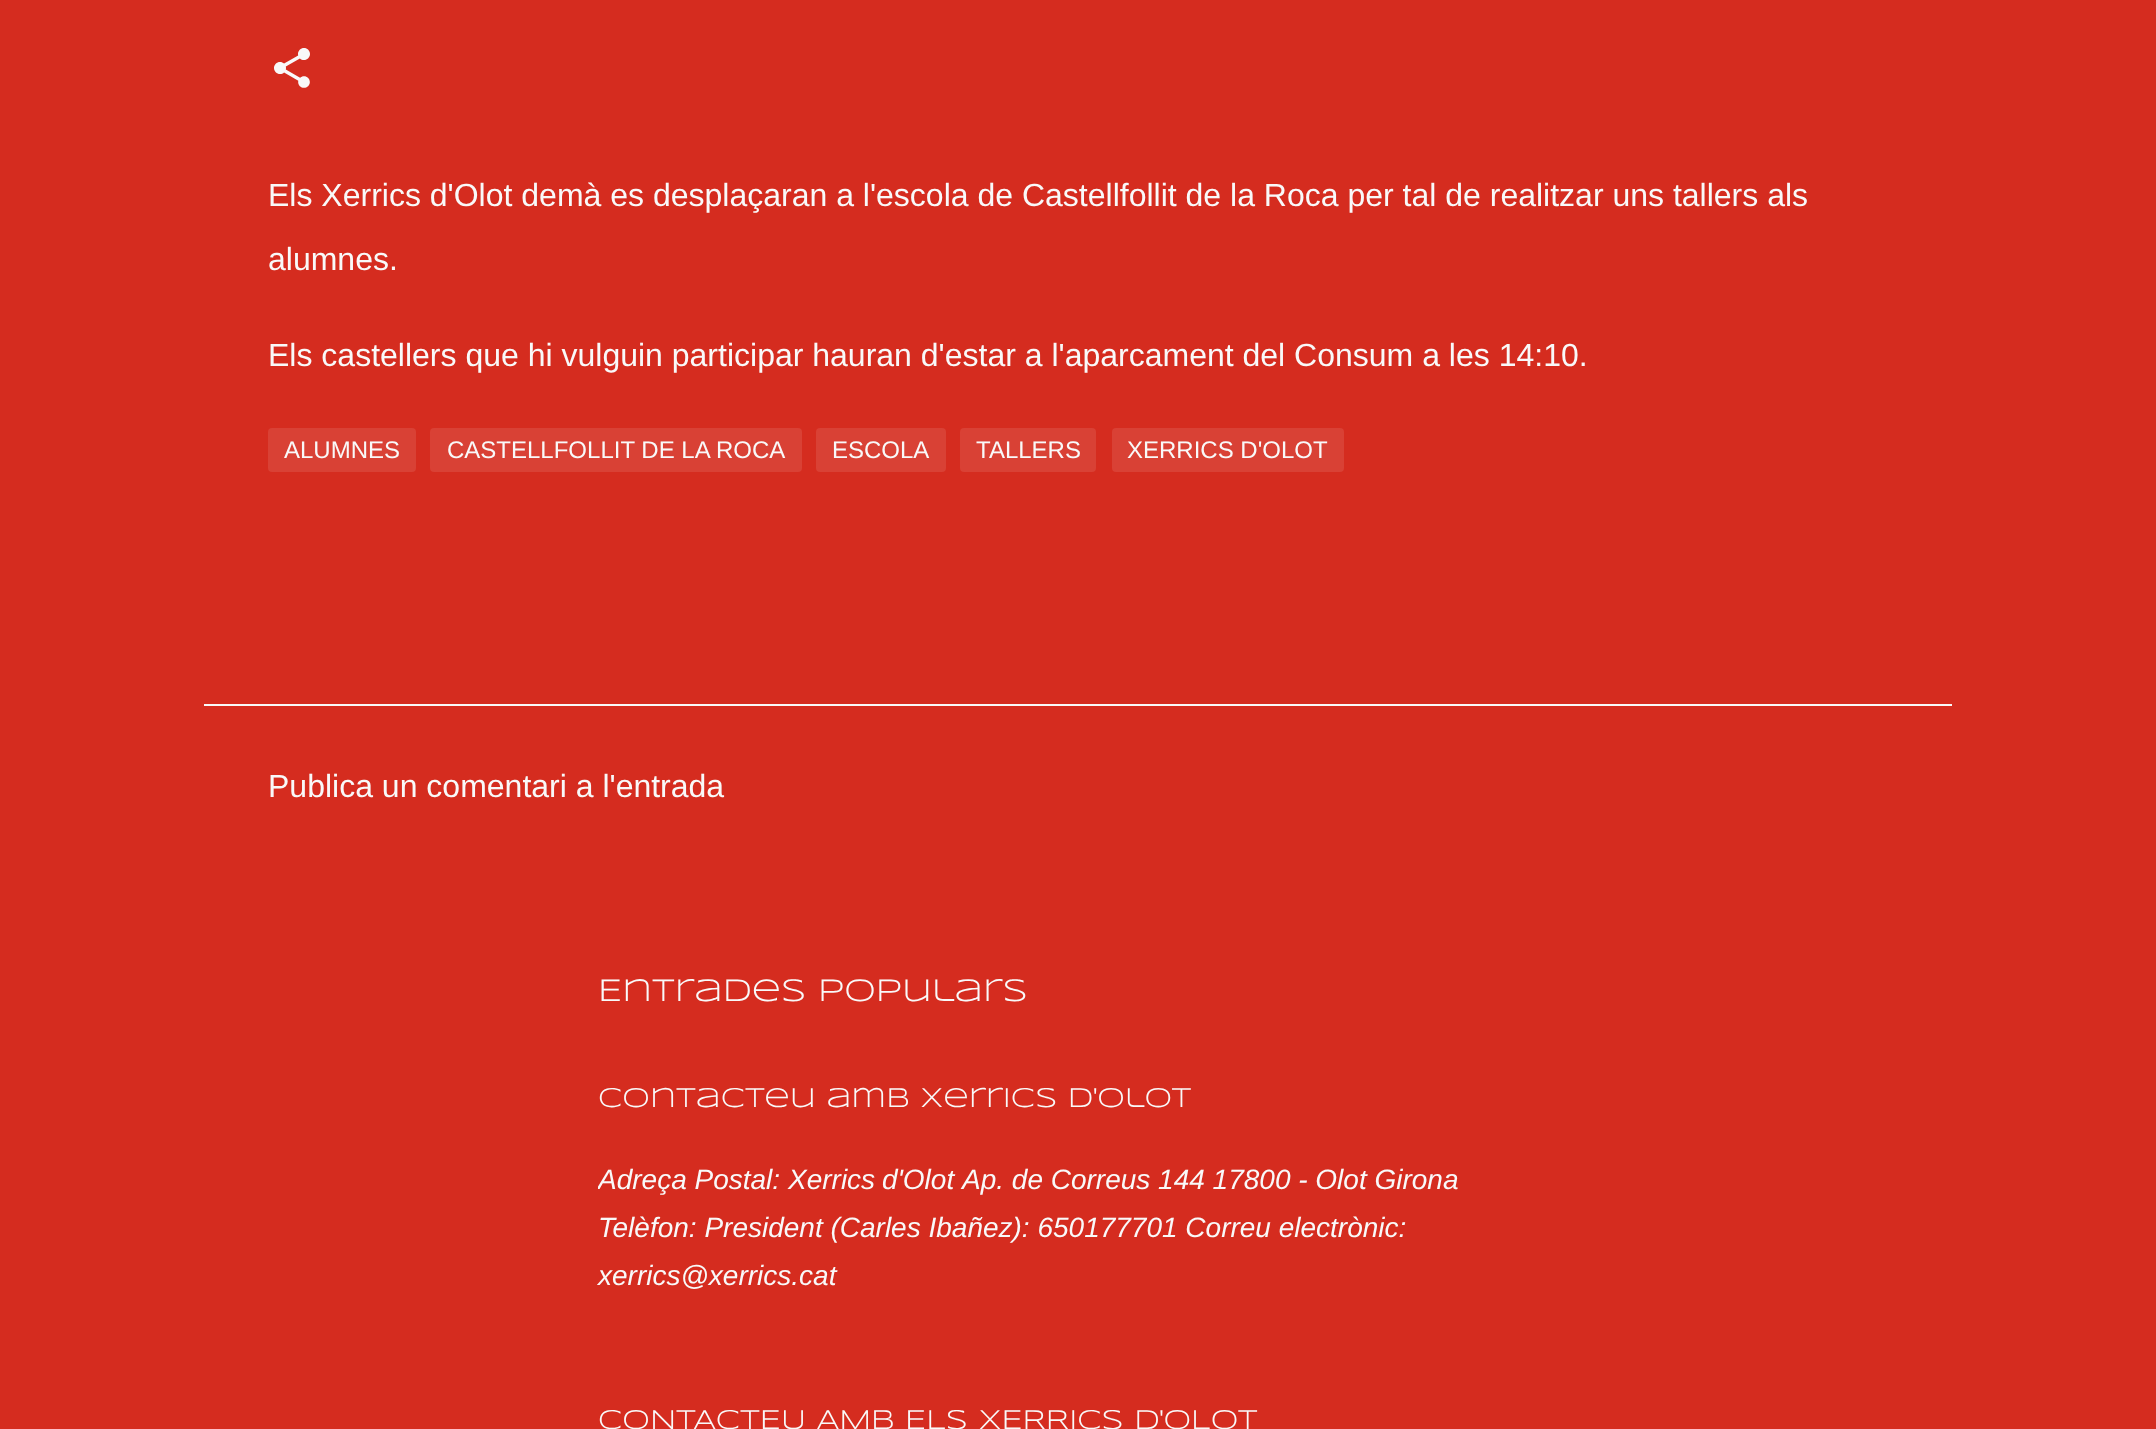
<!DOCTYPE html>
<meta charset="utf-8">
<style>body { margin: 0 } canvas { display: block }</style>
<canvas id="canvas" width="2156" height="1429"></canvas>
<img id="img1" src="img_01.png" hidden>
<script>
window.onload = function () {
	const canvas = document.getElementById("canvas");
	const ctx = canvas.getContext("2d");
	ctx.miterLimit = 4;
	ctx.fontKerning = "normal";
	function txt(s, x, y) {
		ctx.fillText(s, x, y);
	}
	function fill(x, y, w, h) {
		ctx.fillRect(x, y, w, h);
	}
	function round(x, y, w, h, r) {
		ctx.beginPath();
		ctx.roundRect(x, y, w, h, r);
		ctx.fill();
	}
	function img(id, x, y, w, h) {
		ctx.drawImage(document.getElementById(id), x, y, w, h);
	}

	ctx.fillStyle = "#D52C1F";
	fill(0, 0, 2156, 1429);
	img("img1", 274, 48, 36, 40);
	ctx.fillStyle = "#D94135";
	round(268, 428, 148, 44, 4);
	round(430, 428, 372, 44, 4);
	round(816, 428, 130, 44, 4);
	round(960, 428, 136, 44, 4);
	round(1112, 428, 232, 44, 4);
	ctx.fillStyle = "#F9F9F9";
	fill(204, 704, 1748, 2);
	ctx.font = "32px Liberation Sans";
	txt("Els Xerrics d'Olot demà es desplaçaran a l'escola de Castellfollit de la Roca per tal de realitzar uns tallers als", 268, 206);
	txt("alumnes.", 268, 270);
	txt("Els castellers que hi vulguin participar hauran d'estar a l'aparcament del Consum a les 14:10.", 268, 366);
	ctx.font = "24px Liberation Sans";
	txt("ALUMNES", 284, 458);
	txt("CASTELLFOLLIT DE LA ROCA", 447, 458);
	txt("ESCOLA", 832, 458);
	txt("TALLERS", 976, 458);
	txt("XERRICS D'OLOT", 1127, 458);
	ctx.font = "32px Liberation Sans";
	txt("Publica un comentari a l'entrada", 268, 797);
	ctx.font = "32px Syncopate";
	txt("Entrades populars", 598, 1001);
	ctx.font = "28px Syncopate";
	txt("Contacteu amb Xerrics d'Olot", 598, 1107);
	ctx.save();
	ctx.beginPath();
	ctx.rect(598, 1156, 960, 144);
	ctx.clip();
	ctx.font = "italic 28px Liberation Sans";
	txt("Adreça Postal:", 598, 1189);
	ctx.restore();
	ctx.wordSpacing = "-1px";
	ctx.font = "italic 28px Liberation Sans";
	txt("Xerrics d'Olot", 788, 1189);
	ctx.wordSpacing = "0px";
	txt("Ap. de Correus 144 17800 - Olot Girona", 962, 1189);
	txt("Telèfon: President (Carles Ibañez): 650177701 Correu electrònic:", 598, 1237);
	txt("xerrics@xerrics.cat", 598, 1285);
	ctx.font = "28px Syncopate";
	txt("CONTACTEU AMB ELS XERRICS D'OLOT", 598, 1429);
};
</script>
